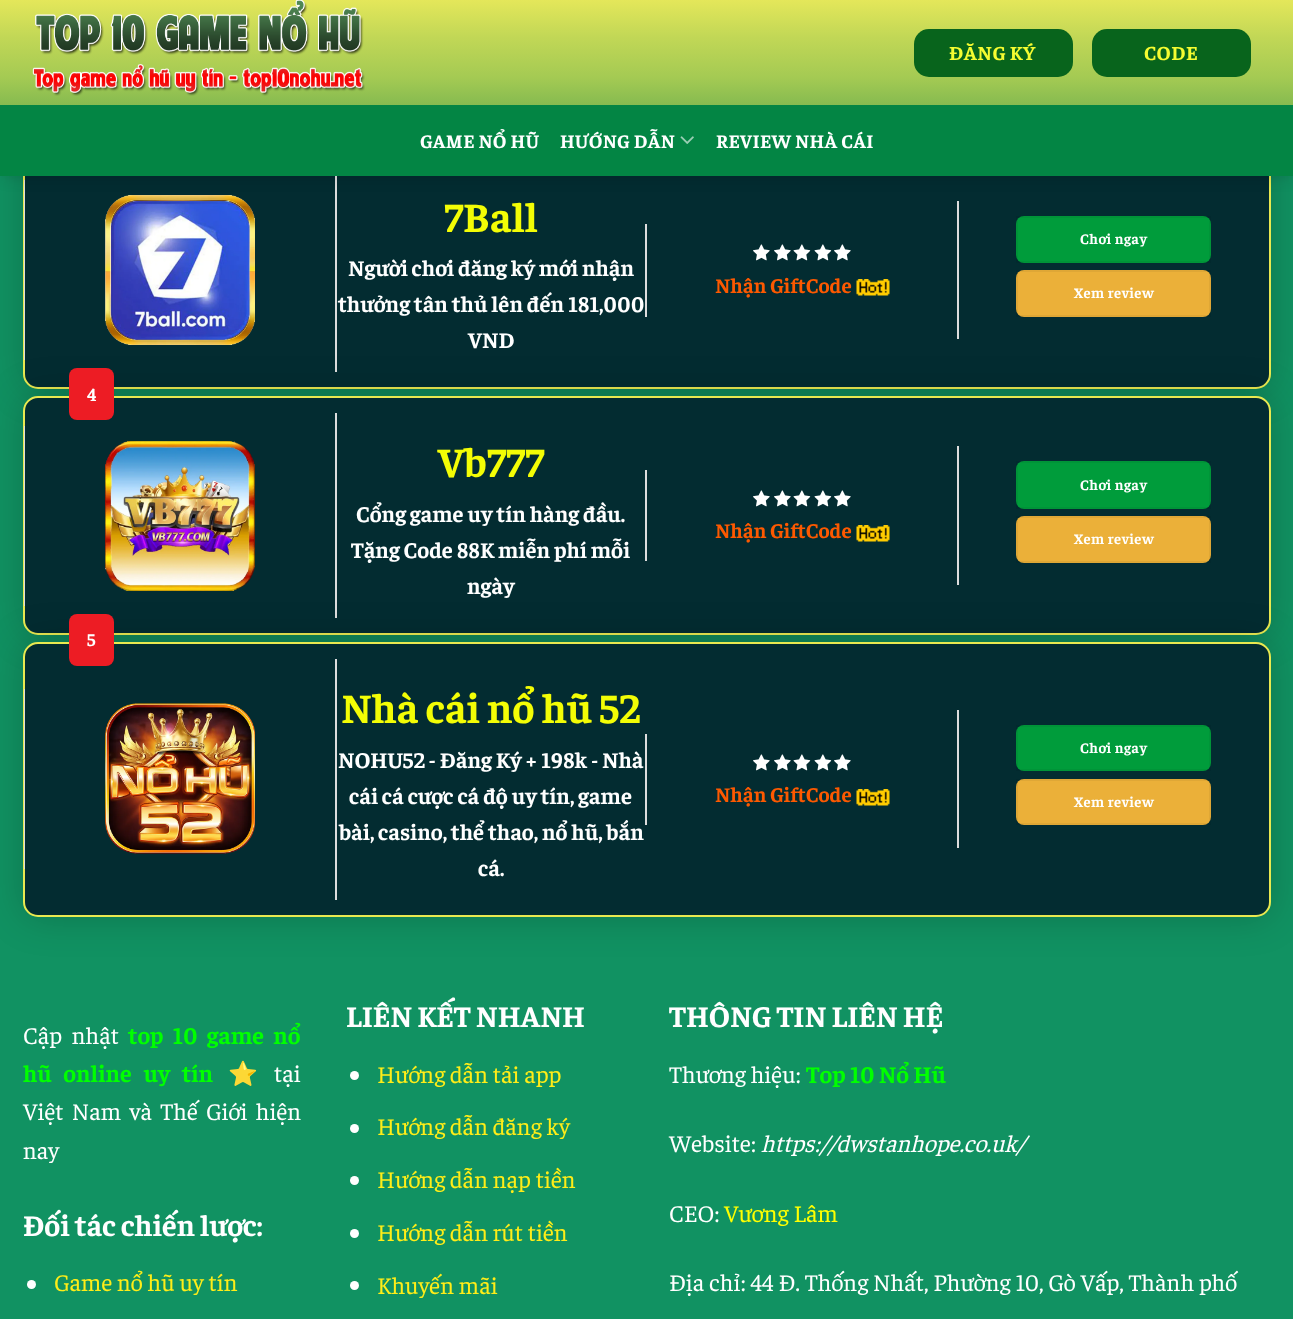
<!DOCTYPE html>
<meta charset="utf-8">
<style>body { margin: 0 } canvas { display: block }</style>
<canvas id="canvas" width="1293" height="1319"></canvas>
<img id="img1" src="img_03.png" hidden>
<img id="img2" src="img_01.png" hidden>
<img id="img3" src="img_02.png" hidden>
<img id="img4" src="img_04.png" hidden>
<img id="img5" src="img_05.png" hidden>
<img id="img6" src="img_06.png" hidden>
<img id="img7" src="img_07.png" hidden>
<img id="img8" src="img_08.png" hidden>
<script>
window.onload = function () {
	const canvas = document.getElementById("canvas");
	const ctx = canvas.getContext("2d");
	ctx.miterLimit = 4;
	ctx.fontKerning = "none";
	function txt(s, x, y) {
		ctx.fillText(s, x, y);
	}
	function fill(x, y, w, h) {
		ctx.fillRect(x, y, w, h);
	}
	function round(x, y, w, h, r) {
		ctx.beginPath();
		ctx.roundRect(x, y, w, h, r);
		ctx.fill();
	}
	function img(id, x, y, w, h) {
		ctx.drawImage(document.getElementById(id), x, y, w, h);
	}
	let gradient;

	ctx.fillStyle = "#119262";
	fill(0, 0, 1293, 1319);
	ctx.fillStyle = "rgba(0, 0, 0, 0.2)";
	ctx.filter = "blur(19px)";
	ctx.beginPath();
	ctx.roundRect(23, 150, 1248, 239, 15);
	ctx.fill();
	ctx.filter = "none";
	ctx.fillStyle = "#032C31";
	ctx.beginPath();
	ctx.roundRect(24, 151, 1246, 237, 14);
	ctx.fill();
	ctx.strokeStyle = "#E9E950";
	ctx.lineWidth = 2;
	ctx.stroke();
	ctx.fillStyle = "#DDDDDD";
	fill(24, 180, 1, 180);
	img("img1", 105, 195, 150, 150);
	fill(335, 176, 2, 196);
	ctx.fillStyle = "rgba(0, 0, 0, 0.15)";
	ctx.filter = "blur(7.5px)";
	ctx.beginPath();
	ctx.rect(2, 2, 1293, 175);
	ctx.fill();
	ctx.filter = "none";
	gradient = ctx.createLinearGradient(647, 0, 647, 105);
	gradient.addColorStop(0, "#E4E75A");
	gradient.addColorStop(0.36, "#C1D756");
	gradient.addColorStop(0.74, "#A4CA53");
	gradient.addColorStop(1, "#86BB50");
	ctx.fillStyle = gradient;
	fill(0, 0, 1293, 105);
	img("img2", 32, 0, 333, 96);
	ctx.fillStyle = "#08641C";
	round(914, 29, 159, 48, 15);
	round(1092, 29, 159, 48, 15);
	ctx.fillStyle = "#038544";
	fill(0, 105, 1293, 71);
	img("img3", 680, 136, 14, 8);
	ctx.fillStyle = "#DDDDDD";
	fill(645, 224, 2, 93);
	img("img4", 753, 244, 17, 17);
	img("img4", 774, 244, 17, 17);
	img("img5", 793, 244, 18, 17);
	img("img5", 814, 244, 18, 17);
	img("img4", 834, 244, 17, 17);
	img("img6", 856, 279, 34, 17);
	fill(957, 201, 2, 138);
	ctx.fillStyle = "#009C3B";
	round(1016, 216, 195, 47, 8);
	ctx.strokeStyle = "rgba(0, 0, 0, 0.05)";
	ctx.strokeRect(1017, 217, 193, 45);
	ctx.fillStyle = "#EBB039";
	round(1016, 270, 195, 47, 8);
	ctx.strokeRect(1017, 271, 193, 45);
	ctx.fillStyle = "rgba(0, 0, 0, 0.2)";
	ctx.filter = "blur(19px)";
	ctx.beginPath();
	ctx.roundRect(23, 396, 1248, 239, 15);
	ctx.fill();
	ctx.filter = "none";
	ctx.fillStyle = "#032C31";
	ctx.beginPath();
	ctx.roundRect(24, 397, 1246, 237, 14);
	ctx.fill();
	ctx.strokeStyle = "#E9E950";
	ctx.stroke();
	ctx.fillStyle = "#ED1C24";
	round(69, 368, 45, 52, 8);
	ctx.fillStyle = "#DDDDDD";
	fill(24, 426, 1, 180);
	img("img7", 105, 441, 150, 150);
	fill(335, 413, 2, 205);
	fill(645, 470, 2, 91);
	img("img4", 753, 490, 17, 17);
	img("img4", 774, 490, 17, 17);
	img("img5", 793, 490, 18, 17);
	img("img5", 814, 490, 18, 17);
	img("img4", 834, 490, 17, 17);
	img("img6", 856, 525, 34, 17);
	fill(957, 446, 2, 139);
	ctx.fillStyle = "#009C3B";
	round(1016, 461, 195, 48, 8);
	ctx.strokeStyle = "rgba(0, 0, 0, 0.05)";
	ctx.strokeRect(1017, 462, 193, 46);
	ctx.fillStyle = "#EBB039";
	round(1016, 516, 195, 47, 8);
	ctx.strokeRect(1017, 517, 193, 45);
	ctx.fillStyle = "rgba(0, 0, 0, 0.2)";
	ctx.filter = "blur(19px)";
	ctx.beginPath();
	ctx.roundRect(23, 642, 1248, 275, 15);
	ctx.fill();
	ctx.filter = "none";
	ctx.fillStyle = "#032C31";
	ctx.beginPath();
	ctx.roundRect(24, 643, 1246, 273, 14);
	ctx.fill();
	ctx.strokeStyle = "#E9E950";
	ctx.stroke();
	ctx.fillStyle = "#ED1C24";
	round(69, 614, 45, 52, 8);
	ctx.fillStyle = "#DDDDDD";
	fill(24, 689, 1, 180);
	img("img8", 105, 703, 150, 151);
	fill(335, 659, 2, 241);
	fill(645, 734, 2, 91);
	img("img4", 753, 754, 17, 17);
	img("img4", 774, 754, 17, 17);
	img("img5", 793, 754, 18, 17);
	img("img5", 814, 754, 18, 17);
	img("img4", 834, 754, 17, 17);
	img("img6", 856, 789, 34, 17);
	fill(957, 710, 2, 138);
	ctx.fillStyle = "#009C3B";
	round(1016, 725, 195, 46, 8);
	ctx.strokeStyle = "rgba(0, 0, 0, 0.05)";
	ctx.strokeRect(1017, 726, 193, 44);
	ctx.fillStyle = "#EBB039";
	round(1016, 779, 195, 46, 8);
	ctx.strokeRect(1017, 780, 193, 44);
	ctx.fillStyle = "#FFFFFF";
	ctx.beginPath();
	ctx.arc(31.5, 1284.5, 4.5, 0, Math.PI * 2);
	ctx.fill();
	ctx.beginPath();
	ctx.arc(354.5, 1075.5, 4.5, 0, Math.PI * 2);
	ctx.fill();
	ctx.beginPath();
	ctx.arc(354.5, 1128.5, 4.5, 0, Math.PI * 2);
	ctx.fill();
	ctx.beginPath();
	ctx.arc(354.5, 1180.5, 4.5, 0, Math.PI * 2);
	ctx.fill();
	ctx.beginPath();
	ctx.arc(354.5, 1233.5, 4.5, 0, Math.PI * 2);
	ctx.fill();
	ctx.beginPath();
	ctx.arc(354.5, 1285.5, 4.5, 0, Math.PI * 2);
	ctx.fill();
	ctx.letterSpacing = "0.5px";
	ctx.font = "bold 20px Faustina";
	ctx.fillStyle = "#F5FC31";
	txt("ĐĂNG KÝ", 949, 60);
	txt("CODE", 1144, 60);
	ctx.letterSpacing = "0.4px";
	ctx.font = "bold 19.25px Faustina";
	ctx.fillStyle = "#FFFFFF";
	txt("GAME NỔ HŨ", 420, 148);
	txt("HƯỚNG DẪN", 560, 148);
	txt("REVIEW NHÀ CÁI", 716, 148);
	ctx.letterSpacing = "0px";
	ctx.font = "bold 42px Faustina";
	ctx.fillStyle = "#F3FD05";
	txt("7Ball", 444, 232);
	ctx.font = "bold 22.5px Faustina";
	ctx.fillStyle = "#FFFFFF";
	txt("Người chơi đăng ký mới nhận", 348, 276);
	txt("thưởng tân thủ lên đến 181,000", 338, 312);
	txt("VND", 468, 348);
	ctx.font = "bold 21px Faustina";
	ctx.fillStyle = "#FD5900";
	txt("Nhận GiftCode", 715, 293);
	ctx.letterSpacing = "0.5px";
	ctx.font = "bold 14.5px Faustina";
	ctx.fillStyle = "#FFFFFF";
	txt("Chơi ngay", 1080, 244);
	txt("Xem review", 1074, 298);
	ctx.letterSpacing = "0px";
	ctx.font = "bold 18px Faustina";
	txt("4", 87, 401);
	ctx.font = "bold 42px Faustina";
	ctx.fillStyle = "#F3FD05";
	txt("Vb777", 438, 477);
	ctx.font = "bold 22.5px Faustina";
	ctx.fillStyle = "#FFFFFF";
	txt("Cổng game uy tín hàng đầu.", 356, 522);
	txt("Tặng Code 88K miễn phí mỗi", 351, 558);
	txt("ngày", 467, 594);
	ctx.font = "bold 21px Faustina";
	ctx.fillStyle = "#FD5900";
	txt("Nhận GiftCode", 715, 538);
	ctx.letterSpacing = "0.5px";
	ctx.font = "bold 14.5px Faustina";
	ctx.fillStyle = "#FFFFFF";
	txt("Chơi ngay", 1080, 490);
	txt("Xem review", 1074, 544);
	ctx.letterSpacing = "0px";
	ctx.font = "bold 18px Faustina";
	txt("5", 87, 646);
	ctx.font = "bold 42px Faustina";
	ctx.fillStyle = "#F3FD05";
	txt("Nhà cái nổ hũ 52", 341, 723);
	ctx.font = "bold 22.5px Faustina";
	ctx.fillStyle = "#FFFFFF";
	txt("NOHU52 - Đăng Ký + 198k - Nhà", 338, 768);
	txt("cái cá cược cá độ uy tín, game", 349, 804);
	txt("bài, casino, thể thao, nổ hũ, bắn", 339, 840);
	txt("cá.", 478, 876);
	ctx.font = "bold 21px Faustina";
	ctx.fillStyle = "#FD5900";
	txt("Nhận GiftCode", 715, 802);
	ctx.letterSpacing = "0.5px";
	ctx.font = "bold 14.5px Faustina";
	ctx.fillStyle = "#FFFFFF";
	txt("Chơi ngay", 1080, 753);
	txt("Xem review", 1074, 807);
	ctx.letterSpacing = "0px";
	ctx.wordSpacing = "5px";
	ctx.font = "24px Faustina";
	txt("Cập nhật", 23, 1044);
	ctx.font = "bold 24px Faustina";
	ctx.fillStyle = "#00FF00";
	txt("top 10 game nổ", 128, 1044);
	ctx.wordSpacing = "7.5px";
	txt("hũ online uy tín", 23, 1082);
	ctx.wordSpacing = "0px";
	ctx.font = "24px Noto Color Emoji";
	ctx.fillStyle = "#FFFFFF";
	txt("⭐", 228, 1082);
	ctx.font = "24px Faustina";
	txt("tại", 274, 1082);
	ctx.wordSpacing = "3.5px";
	txt("Việt Nam và Thế Giới hiện", 23, 1120);
	ctx.wordSpacing = "0px";
	txt("nay", 23, 1159);
	ctx.font = "bold 30px Faustina";
	txt("Đối tác chiến lược:", 23, 1236);
	ctx.font = "24px Faustina";
	ctx.fillStyle = "#FFED18";
	txt("Game nổ hũ uy tín", 54, 1291);
	ctx.font = "bold 30px Faustina";
	ctx.fillStyle = "#FFFFFF";
	txt("LIÊN KẾT NHANH", 346, 1027);
	ctx.font = "24px Faustina";
	ctx.fillStyle = "#FFED18";
	txt("Hướng dẫn tải app", 377, 1083);
	txt("Hướng dẫn đăng ký", 377, 1135);
	txt("Hướng dẫn nạp tiền", 377, 1188);
	txt("Hướng dẫn rút tiền", 377, 1241);
	txt("Khuyến mãi", 377, 1294);
	ctx.font = "bold 30px Faustina";
	ctx.fillStyle = "#FFFFFF";
	txt("THÔNG TIN LIÊN HỆ", 669, 1027);
	ctx.font = "24px Faustina";
	txt("Thương hiệu:", 669, 1083);
	ctx.font = "bold 24px Faustina";
	ctx.fillStyle = "#00FF00";
	txt("Top 10 Nổ Hũ", 806, 1083);
	ctx.font = "24px Faustina";
	ctx.fillStyle = "#FFFFFF";
	txt("Website:", 669, 1152);
	ctx.font = "italic 24px Faustina";
	txt("https://dwstanhope.co.uk/", 761, 1152);
	ctx.font = "24px Faustina";
	txt("CEO:", 669, 1222);
	ctx.fillStyle = "#FFFF00";
	txt("Vương Lâm", 724, 1222);
	ctx.fillStyle = "#FFFFFF";
	txt("Địa chỉ: 44 Đ. Thống Nhất, Phường 10, Gò Vấp, Thành phố", 669, 1291);
};
</script>
